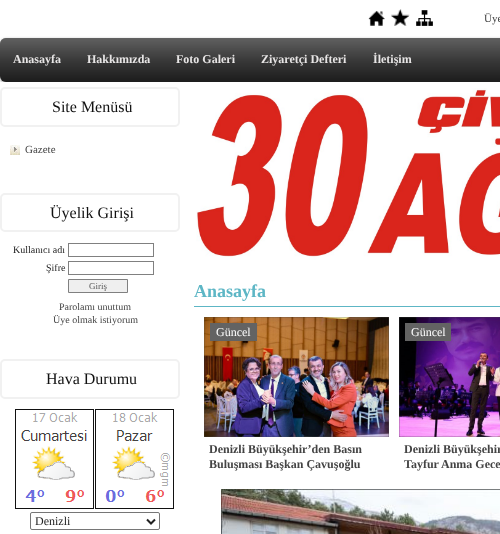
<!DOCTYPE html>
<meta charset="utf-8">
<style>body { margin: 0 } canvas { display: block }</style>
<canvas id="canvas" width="500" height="534"></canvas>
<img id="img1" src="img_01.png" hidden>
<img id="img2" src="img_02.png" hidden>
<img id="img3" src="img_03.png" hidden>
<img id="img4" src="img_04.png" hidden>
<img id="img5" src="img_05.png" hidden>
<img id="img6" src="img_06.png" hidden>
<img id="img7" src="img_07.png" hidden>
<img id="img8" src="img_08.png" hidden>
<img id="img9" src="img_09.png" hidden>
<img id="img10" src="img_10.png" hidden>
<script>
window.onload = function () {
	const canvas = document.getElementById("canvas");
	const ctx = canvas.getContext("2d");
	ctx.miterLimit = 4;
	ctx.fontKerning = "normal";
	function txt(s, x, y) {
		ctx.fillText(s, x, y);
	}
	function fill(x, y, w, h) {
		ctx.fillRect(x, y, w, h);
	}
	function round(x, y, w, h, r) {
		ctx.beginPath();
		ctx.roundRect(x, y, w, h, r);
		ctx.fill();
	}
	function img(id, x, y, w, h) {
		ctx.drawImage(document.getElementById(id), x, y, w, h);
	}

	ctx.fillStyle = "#FFFFFF";
	fill(0, 0, 500, 534);
	img("img1", 368, 10, 17, 16);
	img("img2", 391, 9, 19, 17);
	img("img3", 416, 10, 17, 16);
	ctx.fillStyle = "rgba(0, 0, 0, 0.4)";
	ctx.filter = "blur(1.5px)";
	ctx.beginPath();
	ctx.roundRect(0, 39, 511, 44, 6);
	ctx.fill();
	ctx.filter = "none";
	ctx.fillStyle = "#0D0D0D";
	round(0, 38, 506, 44, 6);
	img("img4", 0, 38, 500, 44);
	ctx.fillStyle = "#FFFFFF";
	fill(0, 82, 500, 4);
	ctx.beginPath();
	ctx.roundRect(1, 88, 178, 38, 4);
	ctx.strokeStyle = "#F1F1F1";
	ctx.lineWidth = 2;
	ctx.stroke();
	img("img5", 10, 145, 10, 10);
	ctx.beginPath();
	ctx.roundRect(1, 194, 178, 37, 4);
	ctx.stroke();
	ctx.strokeStyle = "#808080";
	ctx.lineWidth = 1;
	ctx.strokeRect(68.5, 243.5, 85, 13);
	ctx.strokeRect(68.5, 261.5, 85, 13);
	ctx.fillStyle = "#EFEFEF";
	ctx.beginPath();
	ctx.rect(68.5, 279.5, 59, 13);
	ctx.fill();
	ctx.stroke();
	ctx.beginPath();
	ctx.roundRect(1, 360, 178, 38, 4);
	ctx.strokeStyle = "#F1F1F1";
	ctx.lineWidth = 2;
	ctx.stroke();
	img("img6", 15, 409, 159, 100);
	ctx.beginPath();
	ctx.roundRect(30.5, 512.5, 129, 17, 1.5);
	ctx.strokeStyle = "#767676";
	ctx.lineWidth = 1;
	ctx.stroke();
	ctx.beginPath();
	ctx.moveTo(147, 519.5);
	ctx.lineTo(151, 523.5);
	ctx.lineTo(155, 519.5);
	ctx.strokeStyle = "#222222";
	ctx.lineWidth = 2;
	ctx.stroke();
	img("img7", 196, 88, 304, 172);
	ctx.fillStyle = "#5DB6C5";
	fill(194, 306, 306, 1);
	img("img8", 204, 317, 185, 120);
	ctx.fillStyle = "#636363";
	fill(210, 323, 47, 18);
	img("img9", 399, 317, 101, 120);
	fill(405, 323, 46, 18);
	img("img10", 221, 489, 279, 45);
	ctx.font = "11px Liberation Serif";
	ctx.fillStyle = "#444444";
	txt("Üye", 484, 22);
	ctx.font = "bold 12px Liberation Serif";
	ctx.fillStyle = "#E7E5E5";
	txt("Anasayfa", 13, 63);
	txt("Hakkımızda", 87, 63);
	txt("Foto Galeri", 176, 63);
	txt("Ziyaretçi Defteri", 261, 63);
	txt("İletişim", 373, 63);
	ctx.font = "16px Liberation Serif";
	ctx.fillStyle = "#111111";
	txt("Site Menüsü", 52, 112);
	ctx.font = "11px Liberation Serif";
	ctx.fillStyle = "#444444";
	txt("Gazete", 25, 153);
	ctx.font = "16px Liberation Serif";
	ctx.fillStyle = "#111111";
	txt("Üyelik Girişi", 50, 218);
	ctx.font = "10px Liberation Serif";
	ctx.fillStyle = "#222222";
	txt("Kullanıcı adı", 13, 253);
	txt("Şifre", 46, 271);
	ctx.font = "9px Liberation Serif";
	ctx.fillStyle = "#585858";
	txt("Giriş", 89, 289);
	ctx.font = "10px Liberation Serif";
	ctx.fillStyle = "#444444";
	txt("Parolamı unuttum", 59, 310);
	txt("Üye olmak istiyorum", 53, 323);
	ctx.font = "16px Liberation Serif";
	ctx.fillStyle = "#111111";
	txt("Hava Durumu", 46, 384);
	ctx.font = "12px Liberation Serif";
	ctx.fillStyle = "#222222";
	txt("Denizli", 35, 525);
	ctx.font = "bold 18px Liberation Serif";
	ctx.fillStyle = "#5DB6C5";
	txt("Anasayfa", 194, 297);
	ctx.font = "12px Liberation Serif";
	ctx.fillStyle = "#FFFFFF";
	txt("Güncel", 216, 336);
	ctx.font = "bold 12px Liberation Serif";
	ctx.fillStyle = "#444444";
	txt("Denizli Büyükşehir’den Basın", 209, 453);
	txt("Buluşması Başkan Çavuşoğlu", 209, 468);
	ctx.font = "12px Liberation Serif";
	ctx.fillStyle = "#FFFFFF";
	txt("Güncel", 411, 336);
	ctx.font = "bold 12px Liberation Serif";
	ctx.fillStyle = "#444444";
	txt("Denizli Büyükşehir", 404, 453);
	txt("Tayfur Anma Gece", 404, 468);
};
</script>
